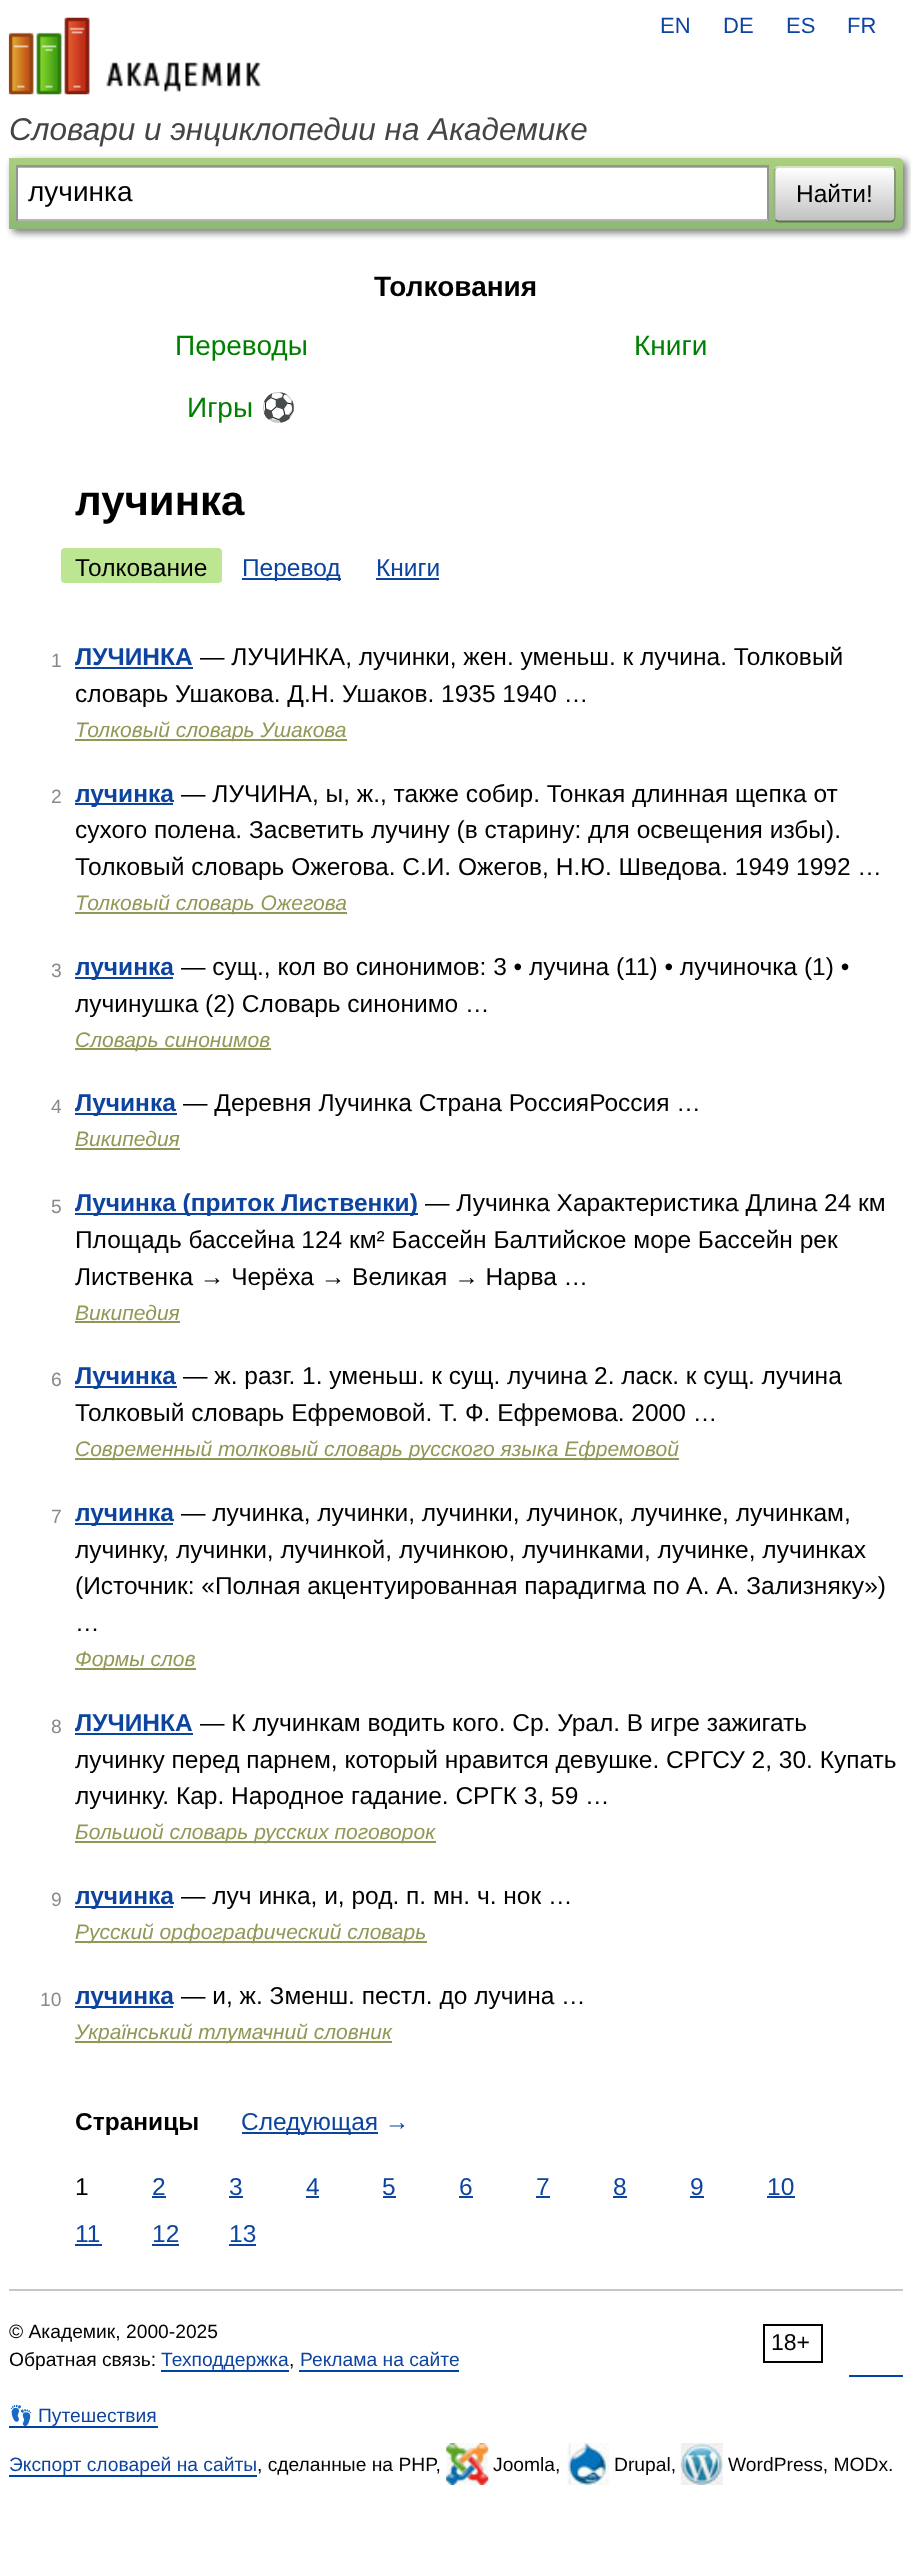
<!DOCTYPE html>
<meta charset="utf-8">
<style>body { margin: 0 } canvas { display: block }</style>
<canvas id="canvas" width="911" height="2574"></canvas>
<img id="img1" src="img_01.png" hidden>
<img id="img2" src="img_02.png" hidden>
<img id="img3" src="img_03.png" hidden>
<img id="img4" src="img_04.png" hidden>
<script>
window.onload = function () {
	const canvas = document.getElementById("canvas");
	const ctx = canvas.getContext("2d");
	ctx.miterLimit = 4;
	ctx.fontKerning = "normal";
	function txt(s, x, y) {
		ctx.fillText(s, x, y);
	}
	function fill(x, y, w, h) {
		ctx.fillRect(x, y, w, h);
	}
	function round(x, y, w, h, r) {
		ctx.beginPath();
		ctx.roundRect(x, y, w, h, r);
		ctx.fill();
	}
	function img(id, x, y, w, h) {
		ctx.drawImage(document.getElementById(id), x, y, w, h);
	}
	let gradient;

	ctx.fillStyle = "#FFFFFF";
	fill(0, 0, 911, 2574);
	img("img1", 8, 17, 253, 78);
	ctx.fillStyle = "rgba(0, 0, 0, 0.5)";
	ctx.filter = "blur(3.5px)";
	ctx.beginPath();
	ctx.roundRect(12, 161, 895, 72, 5);
	ctx.fill();
	ctx.filter = "none";
	gradient = ctx.createLinearGradient(456, 157, 456, 229);
	gradient.addColorStop(0, "#ABCF7E");
	gradient.addColorStop(1, "#8EB874");
	ctx.fillStyle = gradient;
	ctx.beginPath();
	ctx.roundRect(9, 158, 894, 71, [0, 5, 5, 0]);
	ctx.fill();
	ctx.fillStyle = "#FFFFFF";
	fill(18, 168, 749, 51);
	ctx.fillStyle = "#B3B3B3";
	fill(18, 167, 749, 1);
	ctx.fillStyle = "#949494";
	fill(16, 165, 752, 2);
	fill(767, 165, 2, 56);
	ctx.fillStyle = "#B4B4B4";
	fill(16, 219, 752, 2);
	ctx.fillStyle = "#949494";
	fill(16, 165, 2, 56);
	ctx.save();
	ctx.beginPath();
	ctx.roundRect(774, 166, 122, 56, 5);
	ctx.clip();
	gradient = ctx.createLinearGradient(835, 116, 835, 168);
	gradient.addColorStop(0, "#FFFFFF");
	gradient.addColorStop(1, "#C1C1C1");
	ctx.fillStyle = gradient;
	fill(774, 166, 122, 2);
	gradient = ctx.createLinearGradient(835, 168, 835, 221);
	gradient.addColorStop(0, "#FFFFFF");
	gradient.addColorStop(1, "#C1C1C1");
	ctx.fillStyle = gradient;
	fill(774, 168, 122, 53);
	ctx.restore();
	ctx.beginPath();
	ctx.moveTo(775.5, 168.5);
	ctx.bezierCurveTo(776.5, 167.5, 777.5, 167, 779, 167);
	ctx.lineTo(891, 167);
	ctx.bezierCurveTo(892, 167, 893, 167.5, 894, 168.5);
	ctx.strokeStyle = "#D1E4BC";
	ctx.lineWidth = 1.8;
	ctx.stroke();
	ctx.beginPath();
	ctx.moveTo(894, 168.5);
	ctx.bezierCurveTo(894.5, 169, 895, 170.5, 895, 171.5);
	ctx.lineTo(895, 217);
	ctx.bezierCurveTo(895, 218, 894.5, 219.5, 894, 220);
	ctx.strokeStyle = "#7A8E69";
	ctx.stroke();
	ctx.beginPath();
	ctx.moveTo(894, 220);
	ctx.bezierCurveTo(893, 221, 892, 221.5, 891, 221.5);
	ctx.lineTo(779, 221.5);
	ctx.bezierCurveTo(777.5, 221.5, 776.5, 221, 775.5, 220);
	ctx.strokeStyle = "#5D7250";
	ctx.stroke();
	ctx.beginPath();
	ctx.moveTo(775.5, 220);
	ctx.bezierCurveTo(775, 219.5, 774.5, 218, 774.5, 217);
	ctx.lineTo(774.5, 171.5);
	ctx.bezierCurveTo(774.5, 170.5, 775, 169, 775.5, 168.5);
	ctx.strokeStyle = "#9AAE89";
	ctx.stroke();
	ctx.fillStyle = "#BDE693";
	round(61, 548, 161, 35, 4);
	ctx.fillStyle = "#0D44A0";
	fill(242, 578, 99, 2);
	fill(376, 578, 63, 2);
	fill(75, 667, 118, 2);
	ctx.fillStyle = "#939756";
	fill(75, 739, 272, 2);
	ctx.fillStyle = "#0D44A0";
	fill(75, 803, 98, 2);
	ctx.fillStyle = "#939756";
	fill(75, 912, 272, 2);
	ctx.fillStyle = "#0D44A0";
	fill(75, 977, 98, 2);
	ctx.fillStyle = "#939756";
	fill(75, 1048, 196, 2);
	ctx.fillStyle = "#0D44A0";
	fill(75, 1113, 102, 2);
	ctx.fillStyle = "#939756";
	fill(75, 1148, 105, 2);
	ctx.fillStyle = "#0D44A0";
	fill(75, 1213, 343, 2);
	ctx.fillStyle = "#939756";
	fill(75, 1321, 105, 2);
	ctx.fillStyle = "#0D44A0";
	fill(75, 1386, 102, 2);
	ctx.fillStyle = "#939756";
	fill(75, 1458, 604, 2);
	ctx.fillStyle = "#0D44A0";
	fill(75, 1523, 98, 2);
	ctx.fillStyle = "#939756";
	fill(75, 1668, 121, 2);
	ctx.fillStyle = "#0D44A0";
	fill(75, 1733, 118, 2);
	ctx.fillStyle = "#939756";
	fill(75, 1841, 361, 2);
	ctx.fillStyle = "#0D44A0";
	fill(75, 1906, 98, 2);
	ctx.fillStyle = "#939756";
	fill(75, 1941, 352, 2);
	ctx.fillStyle = "#0D44A0";
	fill(75, 2006, 98, 2);
	ctx.fillStyle = "#939756";
	fill(75, 2041, 317, 2);
	ctx.fillStyle = "#0D44A0";
	fill(242, 2132, 136, 2);
	fill(152, 2196, 14, 2);
	fill(229, 2196, 14, 2);
	fill(306, 2196, 13, 2);
	fill(383, 2196, 13, 2);
	fill(459, 2196, 14, 2);
	fill(536, 2196, 14, 2);
	fill(613, 2196, 14, 2);
	fill(690, 2196, 14, 2);
	fill(767, 2196, 28, 2);
	fill(75, 2244, 27, 2);
	fill(152, 2244, 27, 2);
	fill(229, 2244, 27, 2);
	ctx.fillStyle = "#C7C7C7";
	fill(9, 2289, 894, 2);
	ctx.strokeStyle = "#000000";
	ctx.lineWidth = 2;
	ctx.strokeRect(764, 2325, 58, 37);
	ctx.fillStyle = "#0044AA";
	fill(161, 2370, 128, 2);
	fill(299, 2370, 160, 2);
	fill(849, 2375, 54, 2);
	fill(9, 2426, 149, 2);
	fill(9, 2475, 248, 2);
	img("img2", 446, 2443, 43, 42);
	img("img3", 567, 2443, 42, 42);
	img("img4", 680, 2443, 43, 42);
	ctx.font = "22px Liberation Sans";
	ctx.fillStyle = "#0D44A0";
	txt("EN", 660, 33);
	txt("DE", 723, 33);
	txt("ES", 786, 33);
	txt("FR", 847, 33);
	ctx.font = "italic 31.5px Liberation Sans";
	ctx.fillStyle = "#454545";
	txt("Словари и энциклопедии на Академике", 9, 140);
	ctx.font = "28px Liberation Sans";
	ctx.fillStyle = "#000000";
	txt("лучинка", 28, 201);
	ctx.font = "24.5px Liberation Sans";
	txt("Найти!", 796, 202);
	ctx.font = "bold 28px Liberation Sans";
	txt("Толкования", 374, 296);
	ctx.font = "28px Liberation Sans";
	ctx.fillStyle = "#008000";
	txt("Переводы", 175, 355);
	txt("Книги", 634, 355);
	txt("Игры", 187, 417);
	ctx.font = "28px Noto Color Emoji";
	txt("⚽", 261, 417);
	ctx.font = "bold 42px Liberation Sans";
	ctx.fillStyle = "#000000";
	txt("лучинка", 75, 515);
	ctx.font = "24.5px Liberation Sans";
	txt("Толкование", 75, 576);
	ctx.fillStyle = "#0D44A0";
	txt("Перевод", 242, 576);
	txt("Книги", 376, 576);
	ctx.font = "19.25px Liberation Sans";
	ctx.fillStyle = "#898989";
	txt("1", 51, 667);
	ctx.font = "bold 24.5px Liberation Sans";
	ctx.fillStyle = "#0D44A0";
	txt("ЛУЧИНКА", 75, 665);
	ctx.font = "24.5px Liberation Sans";
	ctx.fillStyle = "#000000";
	txt("— ЛУЧИНКА, лучинки, жен. уменьш. к лучина. Толковый", 200, 665);
	txt("словарь Ушакова. Д.Н. Ушаков. 1935 1940 …", 75, 702);
	ctx.font = "italic 21px Liberation Sans";
	ctx.fillStyle = "#939756";
	txt("Толковый словарь Ушакова", 75, 737);
	ctx.font = "19.25px Liberation Sans";
	ctx.fillStyle = "#898989";
	txt("2", 51, 803);
	ctx.font = "bold 24.5px Liberation Sans";
	ctx.fillStyle = "#0D44A0";
	txt("лучинка", 75, 802);
	ctx.font = "24.5px Liberation Sans";
	ctx.fillStyle = "#000000";
	txt("— ЛУЧИНА, ы, ж., также собир. Тонкая длинная щепка от", 181, 802);
	txt("сухого полена. Засветить лучину (в старину: для освещения избы).", 75, 838);
	txt("Толковый словарь Ожегова. С.И. Ожегов, Н.Ю. Шведова. 1949 1992 …", 75, 875);
	ctx.font = "italic 21px Liberation Sans";
	ctx.fillStyle = "#939756";
	txt("Толковый словарь Ожегова", 75, 910);
	ctx.font = "19.25px Liberation Sans";
	ctx.fillStyle = "#898989";
	txt("3", 51, 977);
	ctx.font = "bold 24.5px Liberation Sans";
	ctx.fillStyle = "#0D44A0";
	txt("лучинка", 75, 975);
	ctx.font = "24.5px Liberation Sans";
	ctx.fillStyle = "#000000";
	txt("— сущ., кол во синонимов: 3 • лучина (11) • лучиночка (1) •", 181, 975);
	txt("лучинушка (2) Словарь синонимо …", 75, 1012);
	ctx.font = "italic 21px Liberation Sans";
	ctx.fillStyle = "#939756";
	txt("Словарь синонимов", 75, 1047);
	ctx.font = "19.25px Liberation Sans";
	ctx.fillStyle = "#898989";
	txt("4", 51, 1113);
	ctx.font = "bold 24.5px Liberation Sans";
	ctx.fillStyle = "#0D44A0";
	txt("Лучинка", 75, 1111);
	ctx.font = "24.5px Liberation Sans";
	ctx.fillStyle = "#000000";
	txt("— Деревня Лучинка Страна РоссияРоссия …", 183, 1111);
	ctx.font = "italic 21px Liberation Sans";
	ctx.fillStyle = "#939756";
	txt("Википедия", 75, 1146);
	ctx.font = "19.25px Liberation Sans";
	ctx.fillStyle = "#898989";
	txt("5", 51, 1213);
	ctx.font = "bold 24.5px Liberation Sans";
	ctx.fillStyle = "#0D44A0";
	txt("Лучинка (приток Лиственки)", 75, 1211);
	ctx.font = "24.5px Liberation Sans";
	ctx.fillStyle = "#000000";
	txt("— Лучинка Характеристика Длина 24 км", 425, 1211);
	txt("Площадь бассейна 124 км² Бассейн Балтийское море Бассейн рек", 75, 1248);
	txt("Лиственка → Черёха → Великая → Нарва …", 75, 1285);
	ctx.font = "italic 21px Liberation Sans";
	ctx.fillStyle = "#939756";
	txt("Википедия", 75, 1320);
	ctx.font = "19.25px Liberation Sans";
	ctx.fillStyle = "#898989";
	txt("6", 51, 1386);
	ctx.font = "bold 24.5px Liberation Sans";
	ctx.fillStyle = "#0D44A0";
	txt("Лучинка", 75, 1384);
	ctx.font = "24.5px Liberation Sans";
	ctx.fillStyle = "#000000";
	txt("— ж. разг. 1. уменьш. к сущ. лучина 2. ласк. к сущ. лучина", 183, 1384);
	txt("Толковый словарь Ефремовой. Т. Ф. Ефремова. 2000 …", 75, 1421);
	ctx.font = "italic 21px Liberation Sans";
	ctx.fillStyle = "#939756";
	txt("Современный толковый словарь русского языка Ефремовой", 75, 1456);
	ctx.font = "19.25px Liberation Sans";
	ctx.fillStyle = "#898989";
	txt("7", 51, 1523);
	ctx.font = "bold 24.5px Liberation Sans";
	ctx.fillStyle = "#0D44A0";
	txt("лучинка", 75, 1521);
	ctx.font = "24.5px Liberation Sans";
	ctx.fillStyle = "#000000";
	txt("— лучинка, лучинки, лучинки, лучинок, лучинке, лучинкам,", 181, 1521);
	txt("лучинку, лучинки, лучинкой, лучинкою, лучинками, лучинке, лучинках", 75, 1558);
	txt("(Источник: «Полная акцентуированная парадигма по А. А. Зализняку»)", 75, 1594);
	txt("…", 75, 1631);
	ctx.font = "italic 21px Liberation Sans";
	ctx.fillStyle = "#939756";
	txt("Формы слов", 75, 1666);
	ctx.font = "19.25px Liberation Sans";
	ctx.fillStyle = "#898989";
	txt("8", 51, 1733);
	ctx.font = "bold 24.5px Liberation Sans";
	ctx.fillStyle = "#0D44A0";
	txt("ЛУЧИНКА", 75, 1731);
	ctx.font = "24.5px Liberation Sans";
	ctx.fillStyle = "#000000";
	txt("— К лучинкам водить кого. Ср. Урал. В игре зажигать", 200, 1731);
	txt("лучинку перед парнем, который нравится девушке. СРГСУ 2, 30. Купать", 75, 1768);
	txt("лучинку. Кар. Народное гадание. СРГК 3, 59 …", 75, 1804);
	ctx.font = "italic 21px Liberation Sans";
	ctx.fillStyle = "#939756";
	txt("Большой словарь русских поговорок", 75, 1839);
	ctx.font = "19.25px Liberation Sans";
	ctx.fillStyle = "#898989";
	txt("9", 51, 1906);
	ctx.font = "bold 24.5px Liberation Sans";
	ctx.fillStyle = "#0D44A0";
	txt("лучинка", 75, 1904);
	ctx.font = "24.5px Liberation Sans";
	ctx.fillStyle = "#000000";
	txt("— луч инка, и, род. п. мн. ч. нок …", 181, 1904);
	ctx.font = "italic 21px Liberation Sans";
	ctx.fillStyle = "#939756";
	txt("Русский орфографический словарь", 75, 1939);
	ctx.font = "19.25px Liberation Sans";
	ctx.fillStyle = "#898989";
	txt("10", 40, 2006);
	ctx.font = "bold 24.5px Liberation Sans";
	ctx.fillStyle = "#0D44A0";
	txt("лучинка", 75, 2004);
	ctx.font = "24.5px Liberation Sans";
	ctx.fillStyle = "#000000";
	txt("— и, ж. Зменш. пестл. до лучина …", 181, 2004);
	ctx.font = "italic 21px Liberation Sans";
	ctx.fillStyle = "#939756";
	txt("Український тлумачний словник", 75, 2039);
	ctx.font = "bold 24.5px Liberation Sans";
	ctx.fillStyle = "#000000";
	txt("Страницы", 75, 2130);
	ctx.font = "24.5px Liberation Sans";
	ctx.fillStyle = "#0D44A0";
	txt("Следующая →", 241, 2130);
	ctx.fillStyle = "#000000";
	txt("1", 75, 2195);
	ctx.fillStyle = "#0D44A0";
	txt("2", 152, 2195);
	txt("3", 229, 2195);
	txt("4", 306, 2195);
	txt("5", 382, 2195);
	txt("6", 459, 2195);
	txt("7", 536, 2195);
	txt("8", 613, 2195);
	txt("9", 690, 2195);
	txt("10", 767, 2195);
	txt("11", 75, 2242);
	txt("12", 152, 2242);
	txt("13", 229, 2242);
	ctx.font = "19.25px Liberation Sans";
	ctx.fillStyle = "#000000";
	txt("© Академик, 2000-2025", 9, 2338);
	ctx.font = "23px Liberation Sans";
	txt("18+", 771, 2350);
	ctx.font = "19.25px Liberation Sans";
	txt("Обратная связь:", 9, 2366);
	ctx.fillStyle = "#0D44A0";
	txt("Техподдержка", 161, 2366);
	ctx.fillStyle = "#000000";
	txt(",", 289, 2366);
	ctx.fillStyle = "#0D44A0";
	txt("Реклама на сайте", 300, 2366);
	ctx.font = "19.25px Noto Color Emoji";
	txt("👣", 9, 2422);
	ctx.font = "19.25px Liberation Sans";
	txt("Путешествия", 38, 2422);
	txt("Экспорт словарей на сайты", 9, 2471);
	ctx.fillStyle = "#000000";
	txt(", сделанные на PHP,", 257, 2471);
	txt("Joomla,", 493, 2471);
	txt("Drupal,", 614, 2471);
	txt("WordPress, MODx.", 728, 2471);
};
</script>
